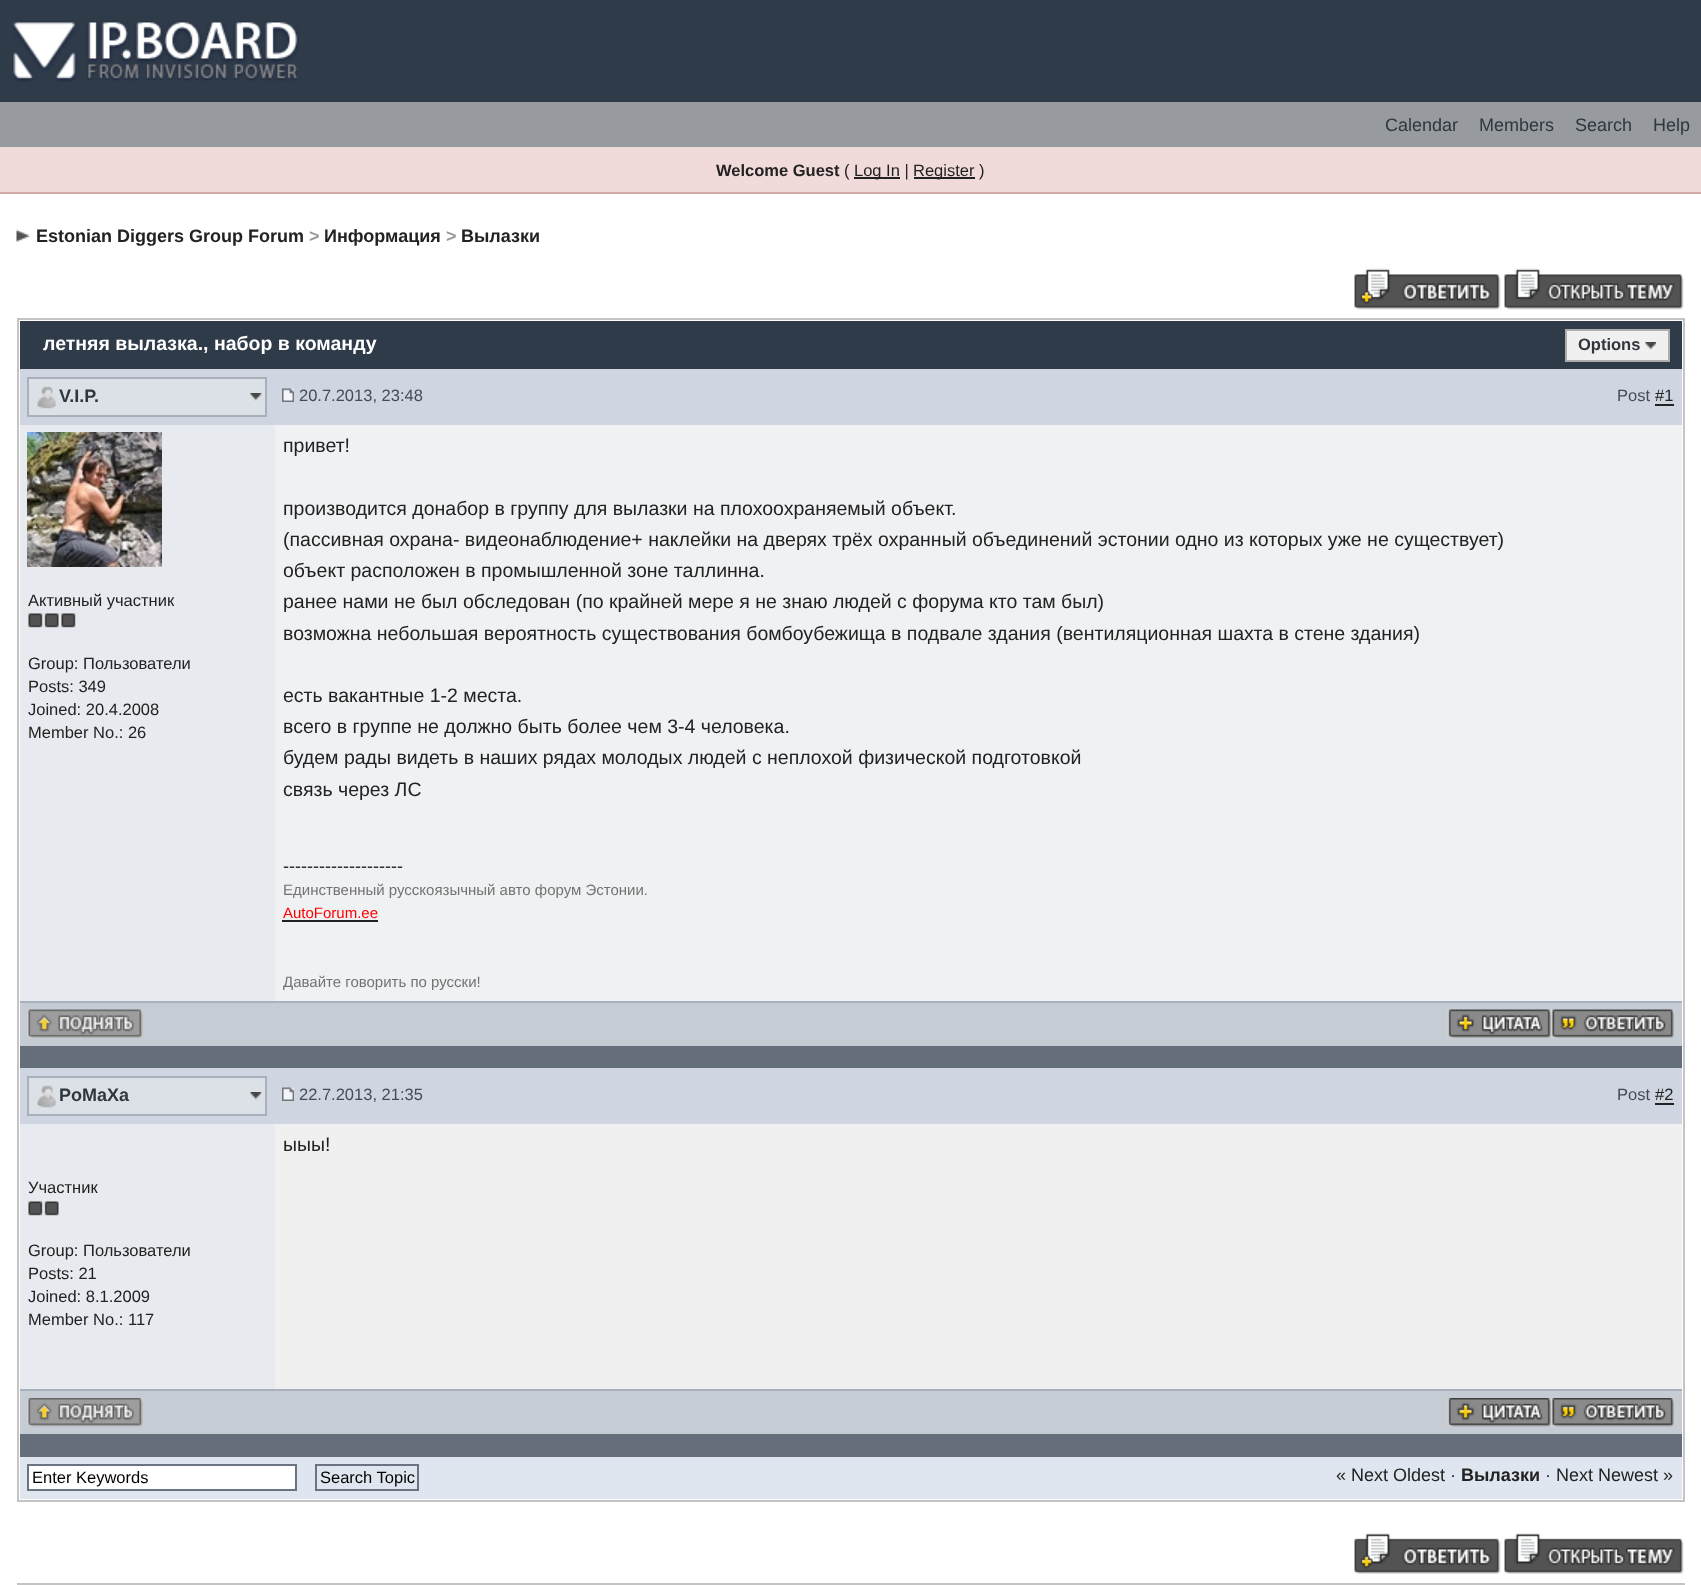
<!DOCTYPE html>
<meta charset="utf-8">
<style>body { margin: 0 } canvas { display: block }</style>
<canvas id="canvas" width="1701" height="1585"></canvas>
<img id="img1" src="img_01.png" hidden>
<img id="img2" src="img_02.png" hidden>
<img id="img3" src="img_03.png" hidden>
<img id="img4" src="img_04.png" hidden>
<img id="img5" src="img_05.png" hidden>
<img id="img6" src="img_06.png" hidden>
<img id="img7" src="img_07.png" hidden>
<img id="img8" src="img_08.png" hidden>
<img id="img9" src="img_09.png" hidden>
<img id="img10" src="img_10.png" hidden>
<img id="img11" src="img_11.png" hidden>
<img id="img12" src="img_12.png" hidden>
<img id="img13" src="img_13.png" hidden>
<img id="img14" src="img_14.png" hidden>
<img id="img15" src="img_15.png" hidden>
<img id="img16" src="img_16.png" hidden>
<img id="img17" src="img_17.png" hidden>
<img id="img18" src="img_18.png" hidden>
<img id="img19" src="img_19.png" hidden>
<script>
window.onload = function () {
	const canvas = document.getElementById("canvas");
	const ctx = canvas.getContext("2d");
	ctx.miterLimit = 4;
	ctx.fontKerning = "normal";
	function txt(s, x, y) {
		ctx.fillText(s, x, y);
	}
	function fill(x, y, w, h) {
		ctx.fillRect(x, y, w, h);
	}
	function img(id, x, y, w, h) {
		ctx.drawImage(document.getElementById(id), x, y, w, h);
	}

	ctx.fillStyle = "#FFFFFF";
	fill(0, 0, 1701, 1585);
	ctx.fillStyle = "#303B4A";
	fill(0, 0, 1701, 102);
	img("img1", 12, 21, 287, 61);
	ctx.fillStyle = "#979BA0";
	fill(0, 102, 1701, 45);
	ctx.fillStyle = "#F1DADA";
	fill(0, 147, 1701, 45);
	ctx.fillStyle = "#D1A9A9";
	fill(0, 192, 1701, 2);
	ctx.fillStyle = "#222222";
	fill(854, 177, 46, 2);
	fill(914, 177, 61, 2);
	img("img2", 16, 229, 14, 13);
	img("img3", 1354, 268, 147, 42);
	img("img4", 1504, 268, 180, 42);
	ctx.strokeStyle = "#C4C4C4";
	ctx.lineWidth = 2;
	ctx.strokeRect(18, 319, 1666, 1182);
	ctx.fillStyle = "#303B4A";
	fill(20, 321, 1662, 48);
	ctx.fillStyle = "#F0F0F0";
	ctx.beginPath();
	ctx.rect(1566, 330, 103, 31);
	ctx.fill();
	ctx.strokeStyle = "#ADADAD";
	ctx.stroke();
	img("img5", 1645, 342, 11, 8);
	ctx.fillStyle = "#CFD6E1";
	fill(20, 369, 1662, 56);
	ctx.fillStyle = "#DCE1E8";
	fill(29, 379, 236, 36);
	img("img6", 250, 393, 12, 8);
	ctx.strokeStyle = "#A9B0BB";
	ctx.strokeRect(28, 378, 238, 38);
	img("img7", 37, 386, 19, 23);
	img("img8", 282, 388, 12, 14);
	ctx.fillStyle = "#222222";
	fill(1655, 404, 19, 2);
	ctx.fillStyle = "#E7EAEF";
	fill(20, 425, 255, 576);
	img("img9", 27, 432, 135, 135);
	img("img10", 28, 613, 15, 15);
	img("img11", 44, 613, 15, 15);
	img("img10", 61, 613, 15, 15);
	ctx.fillStyle = "#EFF1F3";
	fill(275, 425, 1407, 576);
	ctx.fillStyle = "#222222";
	fill(282, 920, 96, 2);
	ctx.fillStyle = "#C6CCD4";
	fill(20, 1003, 1662, 43);
	ctx.fillStyle = "#A8B1BD";
	fill(20, 1001, 1662, 2);
	img("img12", 27, 1009, 116, 29);
	img("img13", 1447, 1009, 104, 29);
	img("img14", 1551, 1009, 123, 29);
	ctx.fillStyle = "#656F7B";
	fill(20, 1046, 1662, 22);
	ctx.fillStyle = "#CFD6E1";
	fill(20, 1068, 1662, 56);
	ctx.fillStyle = "#DCE1E8";
	fill(29, 1078, 236, 36);
	img("img6", 250, 1092, 12, 8);
	ctx.strokeRect(28, 1077, 238, 38);
	img("img7", 37, 1085, 19, 23);
	img("img8", 282, 1087, 12, 14);
	ctx.fillStyle = "#222222";
	fill(1655, 1103, 19, 2);
	ctx.fillStyle = "#F0F0F0";
	fill(275, 1124, 1407, 265);
	ctx.fillStyle = "#E7EAEF";
	fill(20, 1124, 255, 265);
	img("img10", 28, 1201, 15, 15);
	img("img11", 44, 1201, 15, 15);
	ctx.fillStyle = "#C6CCD4";
	fill(20, 1391, 1662, 43);
	ctx.fillStyle = "#A8B1BD";
	fill(20, 1389, 1662, 2);
	img("img15", 27, 1398, 116, 29);
	img("img16", 1447, 1398, 104, 29);
	img("img17", 1551, 1398, 123, 29);
	ctx.fillStyle = "#656F7B";
	fill(20, 1434, 1662, 23);
	ctx.fillStyle = "#DFE6EF";
	fill(20, 1457, 1662, 42);
	ctx.fillStyle = "#FFFFFF";
	ctx.beginPath();
	ctx.rect(28, 1465, 268, 25);
	ctx.fill();
	ctx.strokeStyle = "#6A7382";
	ctx.stroke();
	ctx.strokeRect(316, 1465, 102, 25);
	img("img18", 1354, 1533, 147, 41);
	img("img19", 1504, 1533, 180, 41);
	ctx.strokeStyle = "#C4C4C4";
	ctx.strokeRect(18, 1584, 1666, 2);
	ctx.font = "18px Liberation Sans";
	ctx.fillStyle = "#31363D";
	txt("Calendar", 1385, 131);
	txt("Members", 1479, 131);
	txt("Search", 1575, 131);
	txt("Help", 1653, 131);
	ctx.font = "bold 16.5px Liberation Sans";
	ctx.fillStyle = "#222222";
	txt("Welcome Guest", 716, 176);
	ctx.font = "16.5px Liberation Sans";
	txt("(", 844, 176);
	txt("Log In |", 854, 176);
	txt("Register )", 913, 176);
	ctx.font = "bold 18px Liberation Sans";
	txt("Estonian Diggers Group Forum", 36, 242);
	ctx.fillStyle = "#999999";
	txt(">", 309, 242);
	ctx.fillStyle = "#222222";
	txt("Информация", 324, 242);
	ctx.fillStyle = "#999999";
	txt(">", 446, 242);
	ctx.fillStyle = "#222222";
	txt("Вылазки", 461, 242);
	ctx.font = "bold 19.5px Liberation Sans";
	ctx.fillStyle = "#FFFFFF";
	txt("летняя вылазка., набор в команду", 43, 350);
	ctx.font = "bold 16.5px Liberation Sans";
	ctx.fillStyle = "#31363D";
	txt("Options", 1578, 350);
	ctx.font = "bold 18px Liberation Sans";
	txt("V.I.P.", 59, 402);
	ctx.font = "16.5px Liberation Sans";
	ctx.fillStyle = "#464C55";
	txt("20.7.2013, 23:48", 299, 401);
	txt("Post", 1617, 401);
	ctx.fillStyle = "#222222";
	txt("#1", 1655, 401);
	txt("Активный участник", 28, 606);
	txt("Group: Пользователи", 28, 669);
	txt("Posts: 349", 28, 692);
	txt("Joined: 20.4.2008", 28, 715);
	txt("Member No.: 26", 28, 738);
	ctx.font = "19.5px Liberation Sans";
	txt("привет!", 283, 452);
	txt("производится донабор в группу для вылазки на плохоохраняемый объект.", 283, 515);
	txt("(пассивная охрана- видеонаблюдение+ наклейки на дверях трёх охранный объединений эстонии одно из которых уже не существует)", 283, 546);
	txt("объект расположен в промышленной зоне таллинна.", 283, 577);
	txt("ранее нами не был обследован (по крайней мере я не знаю людей с форума кто там был)", 283, 608);
	txt("возможна небольшая вероятность существования бомбоубежища в подвале здания (вентиляционная шахта в стене здания)", 283, 640);
	txt("есть вакантные 1-2 места.", 283, 702);
	txt("всего в группе не должно быть более чем 3-4 человека.", 283, 733);
	txt("будем рады видеть в наших рядах молодых людей с неплохой физической подготовкой", 283, 764);
	txt("связь через ЛС", 283, 796);
	ctx.font = "18px Liberation Sans";
	txt("--------------------", 283, 872);
	ctx.font = "15px Liberation Sans";
	ctx.fillStyle = "#737373";
	txt("Единственный русскоязычный авто форум Эстонии.", 283, 895);
	ctx.fillStyle = "#FF0000";
	txt("AutoForum.ee", 283, 918);
	ctx.fillStyle = "#737373";
	txt("Давайте говорить по русски!", 283, 987);
	ctx.font = "bold 18px Liberation Sans";
	ctx.fillStyle = "#31363D";
	txt("PoMaXa", 59, 1101);
	ctx.font = "16.5px Liberation Sans";
	ctx.fillStyle = "#464C55";
	txt("22.7.2013, 21:35", 299, 1100);
	txt("Post", 1617, 1100);
	ctx.fillStyle = "#222222";
	txt("#2", 1655, 1100);
	ctx.font = "19.5px Liberation Sans";
	txt("ыыы!", 283, 1151);
	ctx.font = "16.5px Liberation Sans";
	txt("Участник", 28, 1193);
	txt("Group: Пользователи", 28, 1256);
	txt("Posts: 21", 28, 1279);
	txt("Joined: 8.1.2009", 28, 1302);
	txt("Member No.: 117", 28, 1325);
	ctx.fillStyle = "#000000";
	txt("Enter Keywords", 32, 1483);
	txt("Search Topic", 320, 1483);
	ctx.font = "18px Liberation Sans";
	ctx.fillStyle = "#222222";
	txt("« Next Oldest ·", 1336, 1481);
	ctx.font = "bold 18px Liberation Sans";
	txt("Вылазки", 1461, 1481);
	ctx.font = "18px Liberation Sans";
	txt("· Next Newest »", 1545, 1481);
};
</script>
